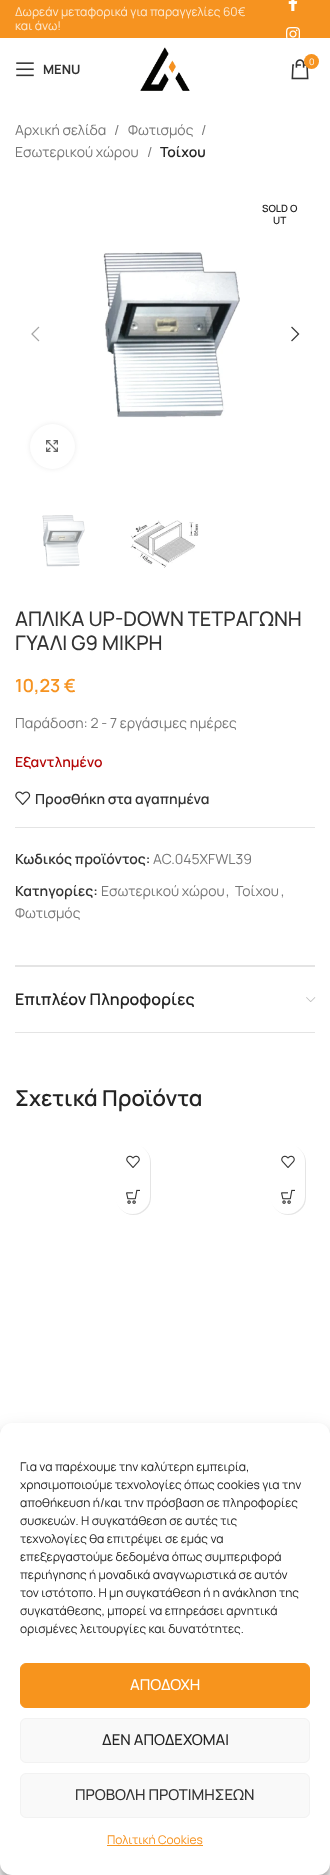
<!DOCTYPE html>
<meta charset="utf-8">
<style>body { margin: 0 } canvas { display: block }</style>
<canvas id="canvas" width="330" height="1875"></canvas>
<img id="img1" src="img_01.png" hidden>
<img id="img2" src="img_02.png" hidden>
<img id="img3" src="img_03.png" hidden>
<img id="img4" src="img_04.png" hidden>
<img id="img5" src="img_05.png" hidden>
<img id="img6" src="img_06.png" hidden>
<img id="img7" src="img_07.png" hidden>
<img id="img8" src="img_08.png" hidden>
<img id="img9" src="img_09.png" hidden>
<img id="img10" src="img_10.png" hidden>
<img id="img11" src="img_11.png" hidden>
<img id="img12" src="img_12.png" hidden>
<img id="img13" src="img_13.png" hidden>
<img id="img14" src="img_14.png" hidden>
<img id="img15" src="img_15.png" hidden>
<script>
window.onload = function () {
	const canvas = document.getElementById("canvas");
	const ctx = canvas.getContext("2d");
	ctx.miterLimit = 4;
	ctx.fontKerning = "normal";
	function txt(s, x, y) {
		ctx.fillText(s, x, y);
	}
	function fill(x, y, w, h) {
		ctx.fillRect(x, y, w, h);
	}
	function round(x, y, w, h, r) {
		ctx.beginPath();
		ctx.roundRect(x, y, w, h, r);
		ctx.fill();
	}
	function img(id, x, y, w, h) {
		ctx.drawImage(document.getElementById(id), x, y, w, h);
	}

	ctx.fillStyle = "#FFFFFF";
	fill(0, 0, 330, 1875);
	ctx.fillStyle = "#F69320";
	fill(0, 0, 330, 38);
	img("img1", 288, 0, 10, 11);
	img("img2", 286, 27, 14, 11);
	img("img3", 140, 47, 50, 44);
	img("img4", 291, 59, 18, 21);
	ctx.beginPath();
	ctx.arc(311.5, 61.5, 7.5, 0, Math.PI * 2);
	ctx.fill();
	img("img5", 16, 62, 18, 15);
	img("img6", 103, 252, 137, 166);
	img("img7", 31, 326, 9, 16);
	img("img8", 291, 326, 9, 16);
	ctx.fillStyle = "rgba(0, 0, 0, 0.08)";
	ctx.filter = "blur(2.5px)";
	ctx.beginPath();
	ctx.roundRect(30, 424, 45, 45, 22.5);
	ctx.fill();
	ctx.filter = "none";
	ctx.fillStyle = "#FFFFFF";
	ctx.beginPath();
	ctx.arc(52.5, 446.5, 22.5, 0, Math.PI * 2);
	ctx.fill();
	img("img9", 46, 440, 12, 12);
	img("img10", 42, 515, 43, 52);
	img("img11", 130, 520, 69, 48);
	img("img12", 15, 791, 16, 14);
	ctx.fillStyle = "#E4E4E4";
	fill(15, 827, 300, 1);
	fill(15, 965, 300, 2);
	fill(15, 1032, 300, 1);
	img("img13", 306, 997, 10, 5);
	ctx.fillStyle = "rgba(0, 0, 0, 0.1)";
	ctx.filter = "blur(0.5px)";
	ctx.beginPath();
	ctx.roundRect(116, 1145, 35, 70, 17.5);
	ctx.fill();
	ctx.filter = "none";
	ctx.fillStyle = "#FFFFFF";
	round(115, 1144, 35, 70, 17.5);
	img("img14", 126, 1155, 14, 13);
	img("img15", 126, 1189, 14, 15);
	ctx.fillStyle = "rgba(0, 0, 0, 0.1)";
	ctx.filter = "blur(0.5px)";
	ctx.beginPath();
	ctx.roundRect(271, 1145, 35, 70, 17.5);
	ctx.fill();
	ctx.filter = "none";
	ctx.fillStyle = "#FFFFFF";
	round(270, 1144, 35, 70, 17.5);
	img("img14", 281, 1155, 14, 13);
	img("img15", 281, 1189, 14, 15);
	ctx.fillStyle = "rgba(0, 0, 0, 0.23)";
	ctx.filter = "blur(3px)";
	ctx.beginPath();
	ctx.roundRect(0, 1429, 330, 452, 12);
	ctx.fill();
	ctx.filter = "none";
	ctx.fillStyle = "rgba(0, 0, 0, 0.19)";
	ctx.filter = "blur(10px)";
	ctx.beginPath();
	ctx.roundRect(0, 1433, 330, 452, 12);
	ctx.fill();
	ctx.filter = "none";
	ctx.fillStyle = "#FFFFFF";
	round(0, 1423, 330, 452, 12);
	ctx.fillStyle = "#F7941D";
	ctx.beginPath();
	ctx.roundRect(20.5, 1663.5, 289, 44, 5.5);
	ctx.fill();
	ctx.strokeStyle = "#F7941D";
	ctx.stroke();
	ctx.fillStyle = "#F9F9F9";
	ctx.beginPath();
	ctx.roundRect(20.5, 1718.5, 289, 44, 5.5);
	ctx.fill();
	ctx.strokeStyle = "#F2F2F2";
	ctx.stroke();
	ctx.beginPath();
	ctx.roundRect(20.5, 1773.5, 289, 44, 5.5);
	ctx.fill();
	ctx.stroke();
	ctx.fillStyle = "#F7941D";
	fill(107, 1845, 96, 1);
	ctx.font = "12px Manrope";
	ctx.fillStyle = "#FDE9D2";
	txt("Δωρεάν μεταφορικά για παραγγελίες 60€", 15, 16);
	txt("και άνω!", 15, 30);
	ctx.font = "9px Manrope";
	ctx.fillStyle = "#FFFFFF";
	txt("0", 309, 65);
	ctx.font = "bold 13px Manrope";
	ctx.fillStyle = "#333333";
	txt("MENU", 43, 74);
	ctx.font = "14px Manrope";
	ctx.fillStyle = "#767676";
	txt("Αρχική σελίδα", 15, 135);
	txt("/", 114, 135);
	txt("Φωτισμός", 128, 135);
	txt("/", 201, 135);
	txt("Εσωτερικού χώρου", 15, 157);
	txt("/", 147, 157);
	ctx.font = "600 14px Manrope";
	ctx.fillStyle = "#242424";
	txt("Τοίχου", 160, 157);
	ctx.font = "600 10px Manrope";
	txt("SOLD O", 262, 212);
	txt("UT", 273, 224);
	ctx.font = "500 20px Manrope";
	ctx.fillStyle = "#333333";
	txt("ΑΠΛΙΚΑ UP-DOWN ΤΕΤΡΑΓΩΝΗ", 15, 626);
	txt("ΓΥΑΛΙ G9 ΜΙΚΡΗ", 15, 650);
	ctx.font = "600 18px Manrope";
	ctx.fillStyle = "#F69320";
	txt("10,23 €", 15, 692);
	ctx.font = "14px Manrope";
	ctx.fillStyle = "#767676";
	txt("Παράδοση: 2 - 7 εργάσιμες ημέρες", 15, 728);
	ctx.font = "600 14px Manrope";
	ctx.fillStyle = "#B50808";
	txt("Εξαντλημένο", 15, 767);
	ctx.fillStyle = "#333333";
	txt("Προσθήκη στα αγαπημένα", 35, 804);
	txt("Κωδικός προϊόντος:", 15, 864);
	ctx.font = "14px Manrope";
	ctx.fillStyle = "#767676";
	txt("AC.045XFWL39", 153, 864);
	ctx.font = "600 14px Manrope";
	ctx.fillStyle = "#333333";
	txt("Κατηγορίες:", 15, 896);
	ctx.font = "14px Manrope";
	ctx.fillStyle = "#767676";
	txt("Εσωτερικού χώρου", 101, 896);
	txt(",", 226, 896);
	txt("Τοίχου", 235, 896);
	txt(",", 281, 896);
	txt("Φωτισμός", 15, 918);
	ctx.font = "600 16px Manrope";
	ctx.fillStyle = "#242424";
	txt("Επιπλέον Πληροφορίες", 15, 1005);
	ctx.font = "600 22px Manrope";
	txt("Σχετικά Προϊόντα", 15, 1106);
	ctx.font = "12px Manrope";
	txt("Για να παρέχουμε την καλύτερη εμπειρία,", 20, 1471);
	txt("χρησιμοποιούμε τεχνολογίες όπως cookies για την", 20, 1489);
	txt("αποθήκευση ή/και την πρόσβαση σε πληροφορίες", 20, 1507);
	txt("συσκευών. Η συγκατάθεση σε αυτές τις", 20, 1525);
	txt("τεχνολογίες θα επιτρέψει σε εμάς να", 20, 1543);
	txt("επεξεργαστούμε δεδομένα όπως συμπεριφορά", 20, 1561);
	txt("περιήγησης ή μοναδικά αναγνωριστικά σε αυτόν", 20, 1579);
	txt("τον ιστότοπο. Η μη συγκατάθεση ή η ανάκληση της", 20, 1597);
	txt("συγκατάθεσης, μπορεί να επηρεάσει αρνητικά", 20, 1615);
	txt("ορισμένες λειτουργίες και δυνατότητες.", 20, 1633);
	ctx.font = "500 15px Manrope";
	ctx.fillStyle = "#FFFFFF";
	txt("ΑΠΟΔΟΧΗ", 130, 1690);
	ctx.fillStyle = "#242424";
	txt("ΔΕΝ ΑΠΟΔΕΧΟΜΑΙ", 102, 1745);
	ctx.fillStyle = "#333333";
	txt("ΠΡΟΒΟΛΗ ΠΡΟΤΙΜΗΣΕΩΝ", 75, 1800);
	ctx.font = "12px Manrope";
	ctx.fillStyle = "#F69320";
	txt("Πολιτική Cookies", 107, 1844);
};
</script>
